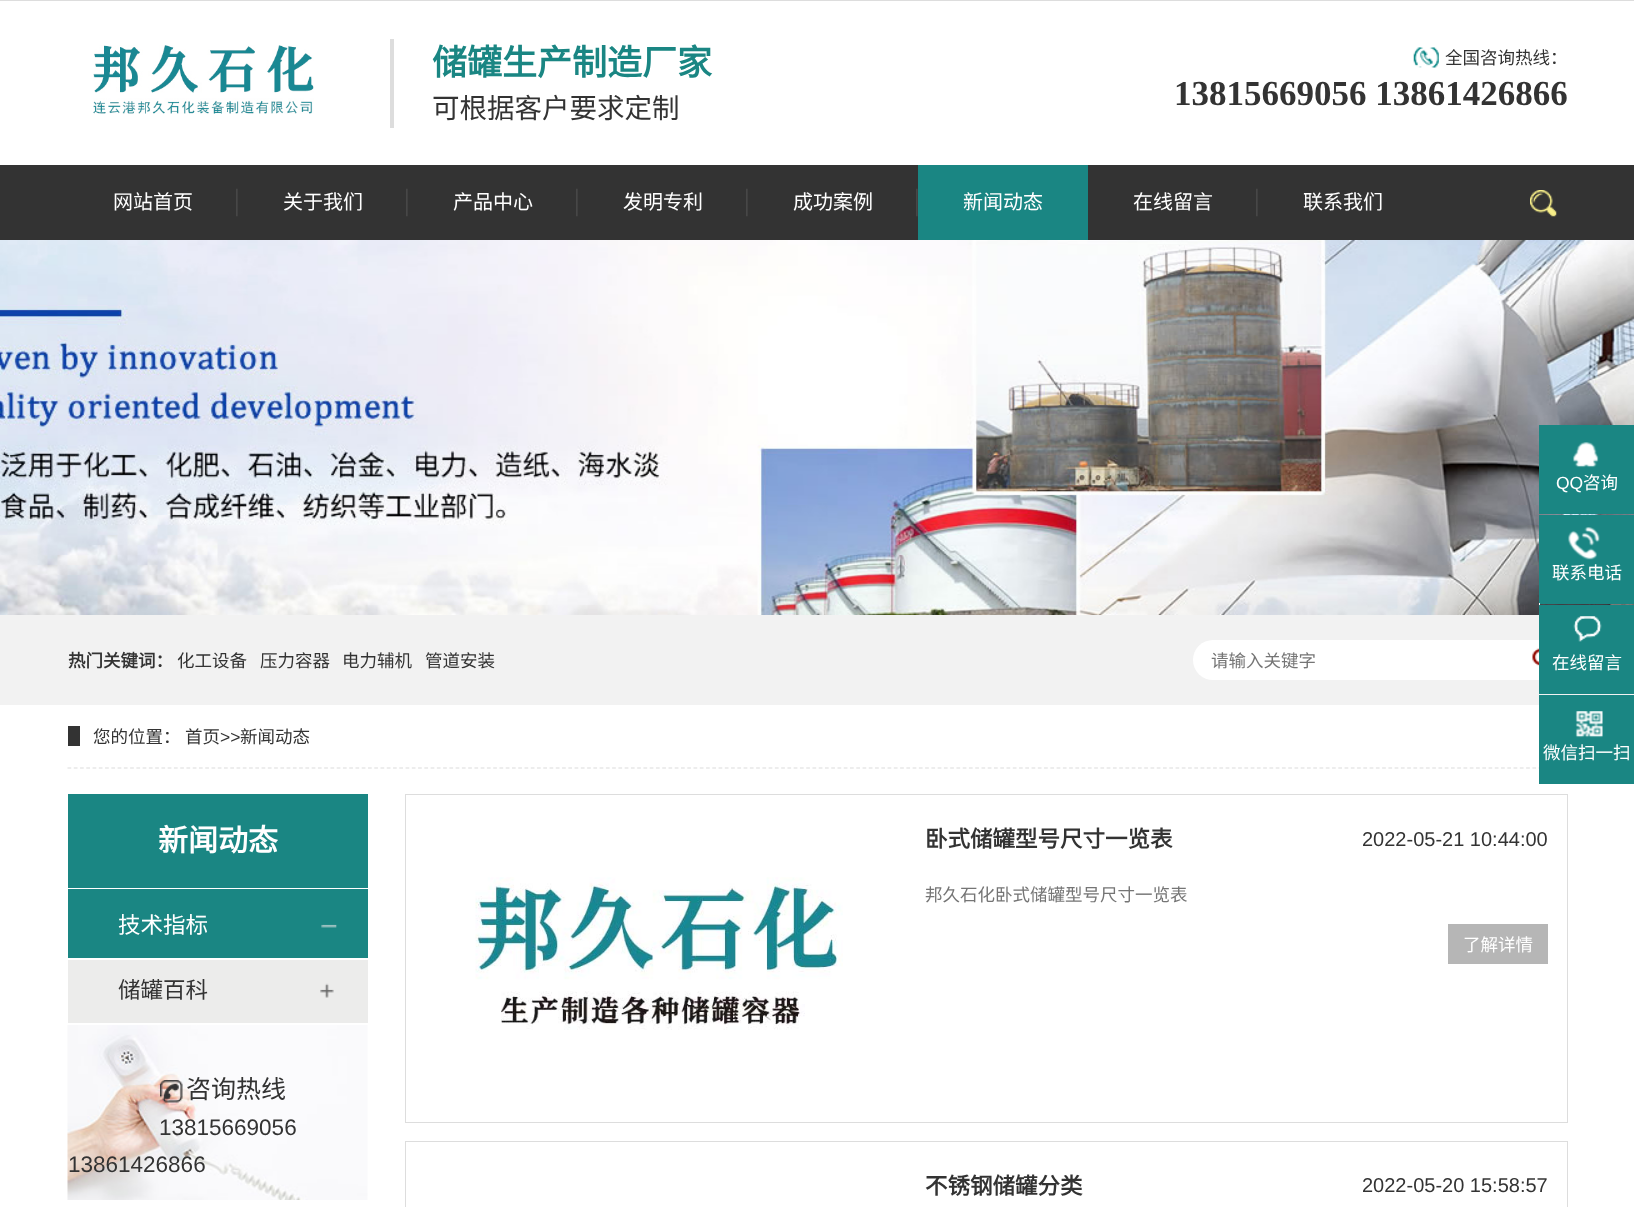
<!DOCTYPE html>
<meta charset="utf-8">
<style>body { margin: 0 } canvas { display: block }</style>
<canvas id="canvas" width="1634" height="1207"></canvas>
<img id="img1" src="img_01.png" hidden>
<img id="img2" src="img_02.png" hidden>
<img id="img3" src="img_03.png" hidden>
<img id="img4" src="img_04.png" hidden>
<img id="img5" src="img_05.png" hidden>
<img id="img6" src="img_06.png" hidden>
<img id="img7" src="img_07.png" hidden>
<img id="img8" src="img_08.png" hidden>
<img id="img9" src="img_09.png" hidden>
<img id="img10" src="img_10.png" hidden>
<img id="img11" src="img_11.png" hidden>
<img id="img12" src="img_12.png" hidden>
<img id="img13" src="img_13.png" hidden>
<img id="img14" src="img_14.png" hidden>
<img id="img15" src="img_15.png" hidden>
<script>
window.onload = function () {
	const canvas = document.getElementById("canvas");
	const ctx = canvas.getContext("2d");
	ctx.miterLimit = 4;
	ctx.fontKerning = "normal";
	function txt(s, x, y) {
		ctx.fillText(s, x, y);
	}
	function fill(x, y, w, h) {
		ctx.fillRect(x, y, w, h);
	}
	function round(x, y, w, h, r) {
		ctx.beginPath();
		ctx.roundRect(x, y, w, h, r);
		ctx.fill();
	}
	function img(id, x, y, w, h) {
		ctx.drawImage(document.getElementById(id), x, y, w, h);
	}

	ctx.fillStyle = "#FFFFFF";
	fill(0, 0, 1634, 1207);
	ctx.fillStyle = "#DDDDDD";
	fill(0, 0, 1634, 1);
	img("img1", 93, 45, 221, 69);
	fill(390, 39, 4, 89);
	img("img2", 1413, 47, 26, 21);
	ctx.fillStyle = "#333333";
	fill(0, 165, 1634, 75);
	img("img3", 236, 188, 2, 29);
	img("img3", 406, 188, 2, 29);
	img("img3", 576, 188, 2, 29);
	img("img3", 746, 188, 2, 29);
	img("img3", 916, 188, 2, 29);
	ctx.fillStyle = "#1A8683";
	fill(918, 165, 170, 75);
	img("img3", 1256, 188, 2, 29);
	img("img4", 1530, 190, 27, 27);
	img("img5", 0, 240, 1634, 375);
	ctx.fillStyle = "#F2F2F2";
	fill(0, 615, 1634, 90);
	ctx.fillStyle = "#FFFFFF";
	round(1193, 640, 375, 40, 20);
	img("img6", 1532, 648, 7, 19);
	ctx.fillStyle = "#1A8683";
	fill(1539, 425, 95, 89);
	img("img7", 1573, 442, 26, 26);
	fill(1539, 515, 95, 89);
	img("img8", 1568, 527, 32, 33);
	ctx.fillStyle = "#FFFFFF";
	fill(1539, 603, 1, 2);
	ctx.fillStyle = "#1A8683";
	fill(1539, 605, 95, 89);
	img("img9", 1573, 616, 29, 26);
	ctx.beginPath();
	ctx.moveTo(67.5, 768);
	ctx.lineTo(1567.5, 768);
	ctx.strokeStyle = "#DCDCDC";
	ctx.lineWidth = 1.2;
	ctx.setLineDash([3.75, 2.51]);
	ctx.stroke();
	fill(1539, 695, 95, 89);
	img("img10", 1575, 711, 28, 27);
	ctx.fillStyle = "#333333";
	fill(68, 726, 12, 20);
	ctx.fillStyle = "#1A8683";
	fill(68, 794, 300, 164);
	ctx.fillStyle = "#FFFFFF";
	fill(68, 888, 300, 1);
	img("img11", 321, 924, 16, 4);
	ctx.fillStyle = "#ECECEB";
	fill(68, 960, 300, 63);
	img("img12", 320, 983, 14, 15);
	img("img13", 67, 1025, 301, 175);
	img("img14", 160, 1080, 23, 23);
	ctx.strokeStyle = "#DDDDDD";
	ctx.lineWidth = 1;
	ctx.setLineDash([]);
	ctx.strokeRect(405.5, 794.5, 1162, 328);
	img("img15", 475, 877, 368, 153);
	ctx.fillStyle = "#B6B6B6";
	fill(1448, 924, 100, 40);
	ctx.strokeRect(405.5, 1141.5, 1162, 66);
	ctx.font = "bold 35px Noto Sans CJK SC";
	ctx.fillStyle = "#1A8683";
	txt("储罐生产制造厂家", 432, 75);
	ctx.font = "27.5px Noto Sans CJK SC";
	ctx.fillStyle = "#333333";
	txt("可根据客户要求定制", 432, 118);
	ctx.font = "17.5px Noto Sans CJK SC";
	txt("全国咨询热线：", 1445, 64);
	ctx.font = "bold 35px Liberation Serif";
	txt("13815669056 13861426866", 1174, 105);
	ctx.font = "20px Noto Sans CJK SC";
	ctx.fillStyle = "#FFFFFF";
	txt("网站首页", 113, 209);
	txt("关于我们", 283, 209);
	txt("产品中心", 453, 209);
	txt("发明专利", 623, 209);
	txt("成功案例", 793, 209);
	txt("新闻动态", 963, 209);
	txt("在线留言", 1133, 209);
	txt("联系我们", 1303, 209);
	ctx.font = "bold 17.5px Noto Sans CJK SC";
	ctx.fillStyle = "#333333";
	txt("热门关键词：", 68, 667);
	ctx.font = "17.5px Noto Sans CJK SC";
	txt("化工设备", 177, 667);
	txt("压力容器", 260, 667);
	txt("电力辅机", 342, 667);
	txt("管道安装", 425, 667);
	ctx.fillStyle = "#757575";
	txt("请输入关键字", 1211, 667);
	ctx.font = "17.5px Liberation Sans";
	ctx.fillStyle = "#FFFFFF";
	txt("QQ", 1556, 489);
	ctx.font = "17.5px Noto Sans CJK SC";
	txt("咨询", 1583, 489);
	txt("联系电话", 1552, 579);
	txt("在线留言", 1552, 669);
	txt("微信扫一扫", 1543, 759);
	ctx.fillStyle = "#333333";
	txt("您的位置：", 93, 743);
	txt("首页", 185, 743);
	ctx.font = "17.5px Liberation Sans";
	txt(">>", 220, 743);
	ctx.font = "17.5px Noto Sans CJK SC";
	txt("新闻动态", 240, 743);
	ctx.font = "bold 30px Noto Sans CJK SC";
	ctx.fillStyle = "#FFFFFF";
	txt("新闻动态", 158, 851);
	ctx.font = "22.5px Noto Sans CJK SC";
	txt("技术指标", 118, 933);
	ctx.fillStyle = "#333333";
	txt("储罐百科", 118, 998);
	ctx.font = "25px Noto Sans CJK SC";
	txt("咨询热线", 186, 1098);
	ctx.font = "22.5px Liberation Sans";
	txt("13815669056", 159, 1135);
	txt("13861426866", 68, 1172);
	ctx.font = "bold 22.5px Noto Sans CJK SC";
	txt("卧式储罐型号尺寸一览表", 925, 847);
	ctx.font = "20px Liberation Sans";
	txt("2022-05-21 10:44:00", 1362, 846);
	ctx.font = "17.5px Noto Sans CJK SC";
	ctx.fillStyle = "#757575";
	txt("邦久石化卧式储罐型号尺寸一览表", 925, 901);
	ctx.fillStyle = "#FFFFFF";
	txt("了解详情", 1463, 951);
	ctx.font = "bold 22.5px Noto Sans CJK SC";
	ctx.fillStyle = "#333333";
	txt("不锈钢储罐分类", 925, 1194);
	ctx.font = "20px Liberation Sans";
	txt("2022-05-20 15:58:57", 1362, 1192);
};
</script>
